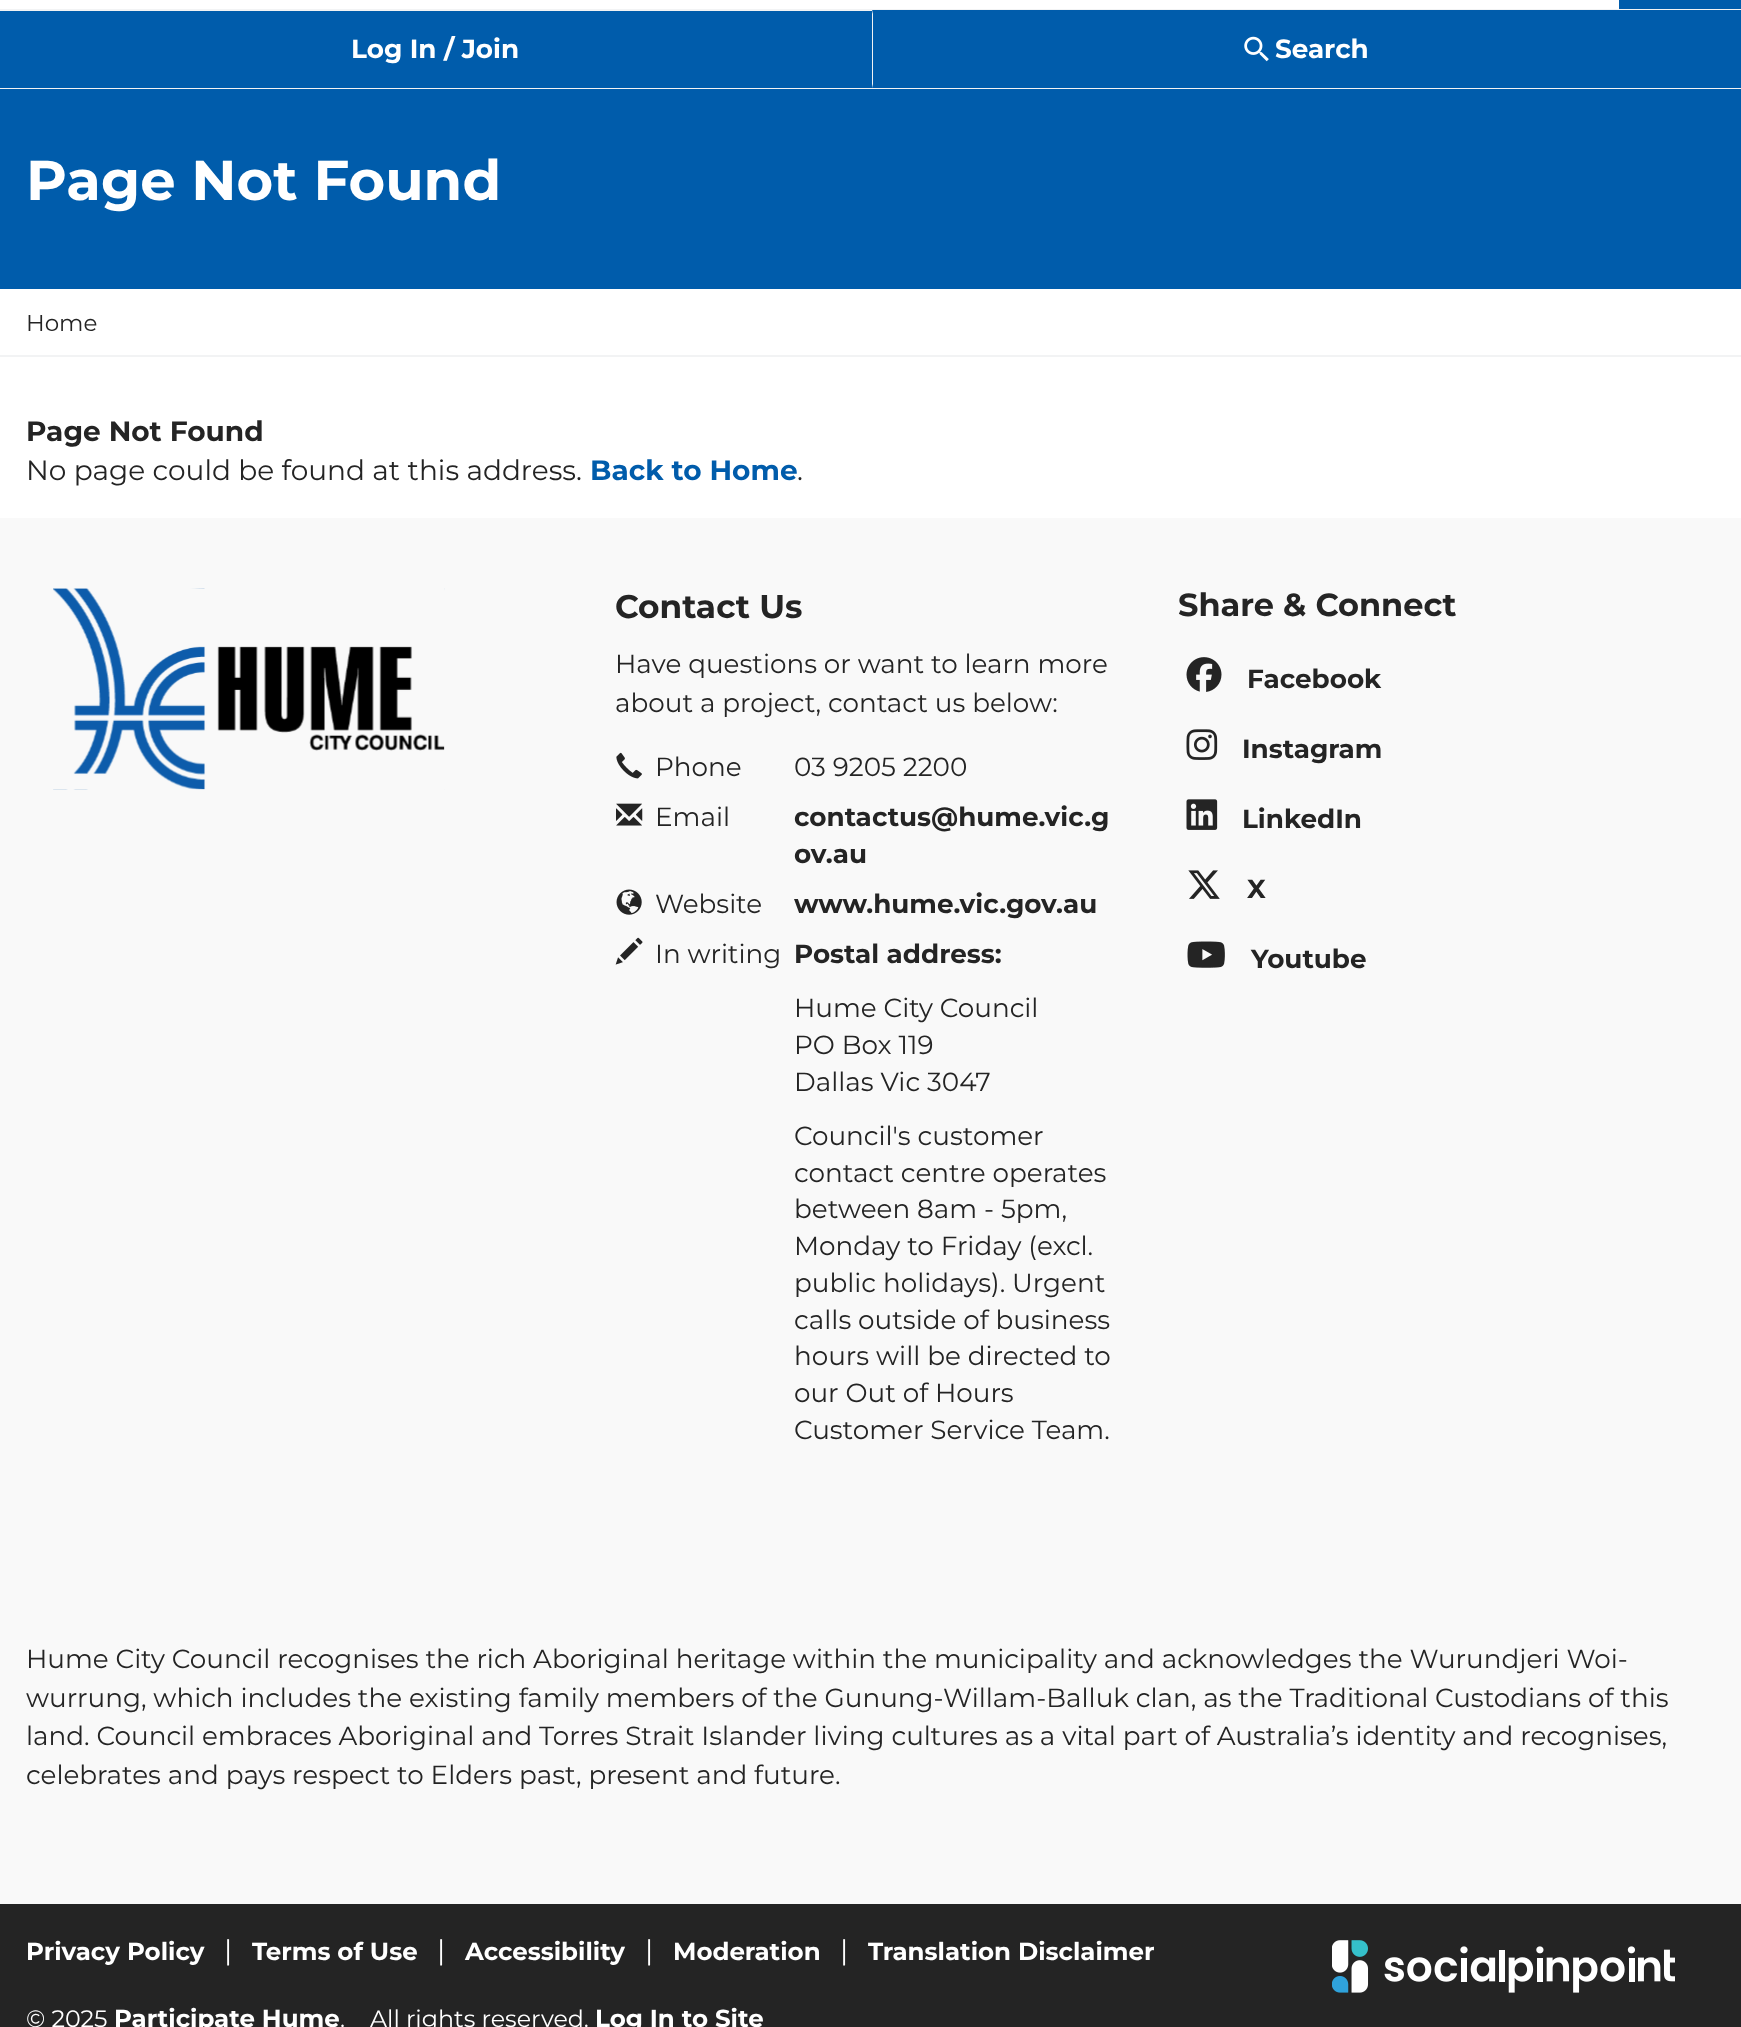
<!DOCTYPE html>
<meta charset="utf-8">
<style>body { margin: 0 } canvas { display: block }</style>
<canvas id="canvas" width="1741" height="2027"></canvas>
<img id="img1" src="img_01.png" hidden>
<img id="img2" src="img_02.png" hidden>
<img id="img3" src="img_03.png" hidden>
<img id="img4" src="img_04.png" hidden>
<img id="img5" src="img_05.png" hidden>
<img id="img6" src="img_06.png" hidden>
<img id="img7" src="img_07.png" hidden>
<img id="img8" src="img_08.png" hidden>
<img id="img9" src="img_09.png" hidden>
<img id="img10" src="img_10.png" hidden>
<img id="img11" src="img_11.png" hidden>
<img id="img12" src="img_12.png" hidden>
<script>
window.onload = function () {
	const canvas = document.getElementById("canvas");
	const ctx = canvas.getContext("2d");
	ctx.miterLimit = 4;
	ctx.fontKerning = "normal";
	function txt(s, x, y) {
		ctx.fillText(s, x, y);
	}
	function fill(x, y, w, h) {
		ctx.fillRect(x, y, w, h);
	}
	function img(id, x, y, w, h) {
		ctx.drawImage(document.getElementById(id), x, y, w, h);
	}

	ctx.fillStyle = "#FFFFFF";
	fill(0, 0, 1741, 2027);
	ctx.fillStyle = "#F2F3F4";
	fill(0, 88, 1741, 1);
	ctx.fillStyle = "#005CAB";
	fill(1619, 0, 122, 9);
	ctx.fillStyle = "#F2F3F4";
	fill(0, 9, 1741, 2);
	ctx.fillStyle = "#005CAB";
	fill(0, 11, 1741, 77);
	ctx.beginPath();
	ctx.moveTo(872, 10);
	ctx.lineTo(1741, 10);
	ctx.lineTo(1741, 14);
	ctx.lineTo(873, 14);
	ctx.closePath();
	ctx.fill();
	ctx.fillStyle = "#F2F3F4";
	ctx.beginPath();
	ctx.moveTo(872, 88);
	ctx.lineTo(872, 10);
	ctx.lineTo(873, 14);
	ctx.lineTo(873, 84);
	ctx.closePath();
	ctx.fill();
	img("img1", 1244, 36, 25, 26);
	fill(0, 355, 1741, 2);
	ctx.fillStyle = "#005CAB";
	fill(0, 89, 1741, 200);
	ctx.fillStyle = "#F9F9F9";
	fill(0, 518, 1741, 1386);
	img("img2", 53, 588, 392, 202);
	img("img3", 616, 752, 26, 27);
	img("img4", 616, 803, 27, 23);
	img("img5", 616, 889, 26, 26);
	img("img6", 615, 937, 28, 28);
	img("img7", 1186, 657, 36, 35);
	img("img8", 1186, 729, 32, 31);
	img("img9", 1186, 799, 32, 31);
	img("img10", 1188, 870, 32, 29);
	img("img11", 1187, 941, 38, 27);
	ctx.fillStyle = "#242424";
	fill(0, 1904, 1741, 123);
	img("img12", 1332, 1940, 343, 53);
	ctx.font = "bold 26.25px Montserrat";
	ctx.fillStyle = "#FFFFFF";
	txt("Log In / Join", 351, 58);
	txt("Search", 1275, 58);
	ctx.font = "bold 56px Montserrat";
	txt("Page Not Found", 26, 200);
	ctx.font = "23px Montserrat";
	ctx.fillStyle = "#242424";
	txt("Home", 26, 331);
	ctx.font = "bold 28px Montserrat";
	txt("Page Not Found", 26, 441);
	ctx.font = "28px Montserrat";
	txt("No page could be found at this address.", 26, 480);
	ctx.font = "bold 28px Montserrat";
	ctx.fillStyle = "#005CAB";
	txt("Back to Home", 590, 480);
	ctx.font = "28px Montserrat";
	ctx.fillStyle = "#242424";
	txt(".", 797, 480);
	ctx.font = "bold 32.75px Montserrat";
	txt("Contact Us", 615, 618);
	ctx.font = "26.25px Montserrat";
	txt("Have questions or want to learn more", 615, 673);
	txt("about a project, contact us below:", 615, 712);
	txt("Phone", 655, 776);
	txt("03 9205 2200", 794, 776);
	txt("Email", 655, 826);
	ctx.font = "bold 26.25px Montserrat";
	txt("contactus@hume.vic.g", 794, 826);
	txt("ov.au", 794, 863);
	ctx.font = "26.25px Montserrat";
	txt("Website", 655, 913);
	ctx.font = "bold 26.25px Montserrat";
	txt("www.hume.vic.gov.au", 794, 913);
	ctx.font = "26.25px Montserrat";
	txt("In writing", 655, 963);
	ctx.font = "bold 26.25px Montserrat";
	txt("Postal address:", 794, 963);
	ctx.font = "26.25px Montserrat";
	txt("Hume City Council", 794, 1017);
	txt("PO Box 119", 794, 1054);
	txt("Dallas Vic 3047", 794, 1091);
	txt("Council's customer", 794, 1145);
	txt("contact centre operates", 794, 1182);
	txt("between 8am - 5pm,", 794, 1218);
	txt("Monday to Friday (excl.", 794, 1255);
	txt("public holidays). Urgent", 794, 1292);
	txt("calls outside of business", 794, 1329);
	txt("hours will be directed to", 794, 1365);
	txt("our Out of Hours", 794, 1402);
	txt("Customer Service Team.", 794, 1439);
	ctx.font = "bold 32px Montserrat";
	txt("Share & Connect", 1178, 616);
	ctx.font = "bold 26.25px Montserrat";
	txt("Facebook", 1247, 688);
	txt("Instagram", 1242, 758);
	txt("LinkedIn", 1242, 828);
	txt("X", 1247, 898);
	txt("Youtube", 1251, 968);
	ctx.font = "26.25px Montserrat";
	txt("Hume City Council recognises the rich Aboriginal heritage within the municipality and acknowledges the Wurundjeri Woi-", 26, 1668);
	txt("wurrung, which includes the existing family members of the Gunung-Willam-Balluk clan, as the Traditional Custodians of this", 26, 1707);
	txt("land. Council embraces Aboriginal and Torres Strait Islander living cultures as a vital part of Australia’s identity and recognises,", 26, 1745);
	txt("celebrates and pays respect to Elders past, present and future.", 26, 1784);
	ctx.font = "bold 24.5px Montserrat";
	ctx.fillStyle = "#FFFFFF";
	txt("Privacy Policy", 26, 1960);
	ctx.font = "28px Montserrat";
	txt("|", 224, 1960);
	ctx.font = "bold 24.5px Montserrat";
	txt("Terms of Use", 252, 1960);
	ctx.font = "28px Montserrat";
	txt("|", 437, 1960);
	ctx.font = "bold 24.5px Montserrat";
	txt("Accessibility", 465, 1960);
	ctx.font = "28px Montserrat";
	txt("|", 645, 1960);
	ctx.font = "bold 24.5px Montserrat";
	txt("Moderation", 673, 1960);
	ctx.font = "28px Montserrat";
	txt("|", 840, 1960);
	ctx.font = "bold 24.5px Montserrat";
	txt("Translation Disclaimer", 868, 1960);
	ctx.font = "23.75px Montserrat";
	txt("© 2025", 26, 2027);
	ctx.font = "bold 24.5px Montserrat";
	txt("Participate Hume", 114, 2027);
	ctx.font = "23.75px Montserrat";
	txt(".", 340, 2027);
	txt("All rights reserved.", 370, 2027);
	ctx.font = "bold 24.5px Montserrat";
	txt("Log In to Site", 595, 2027);
};
</script>
